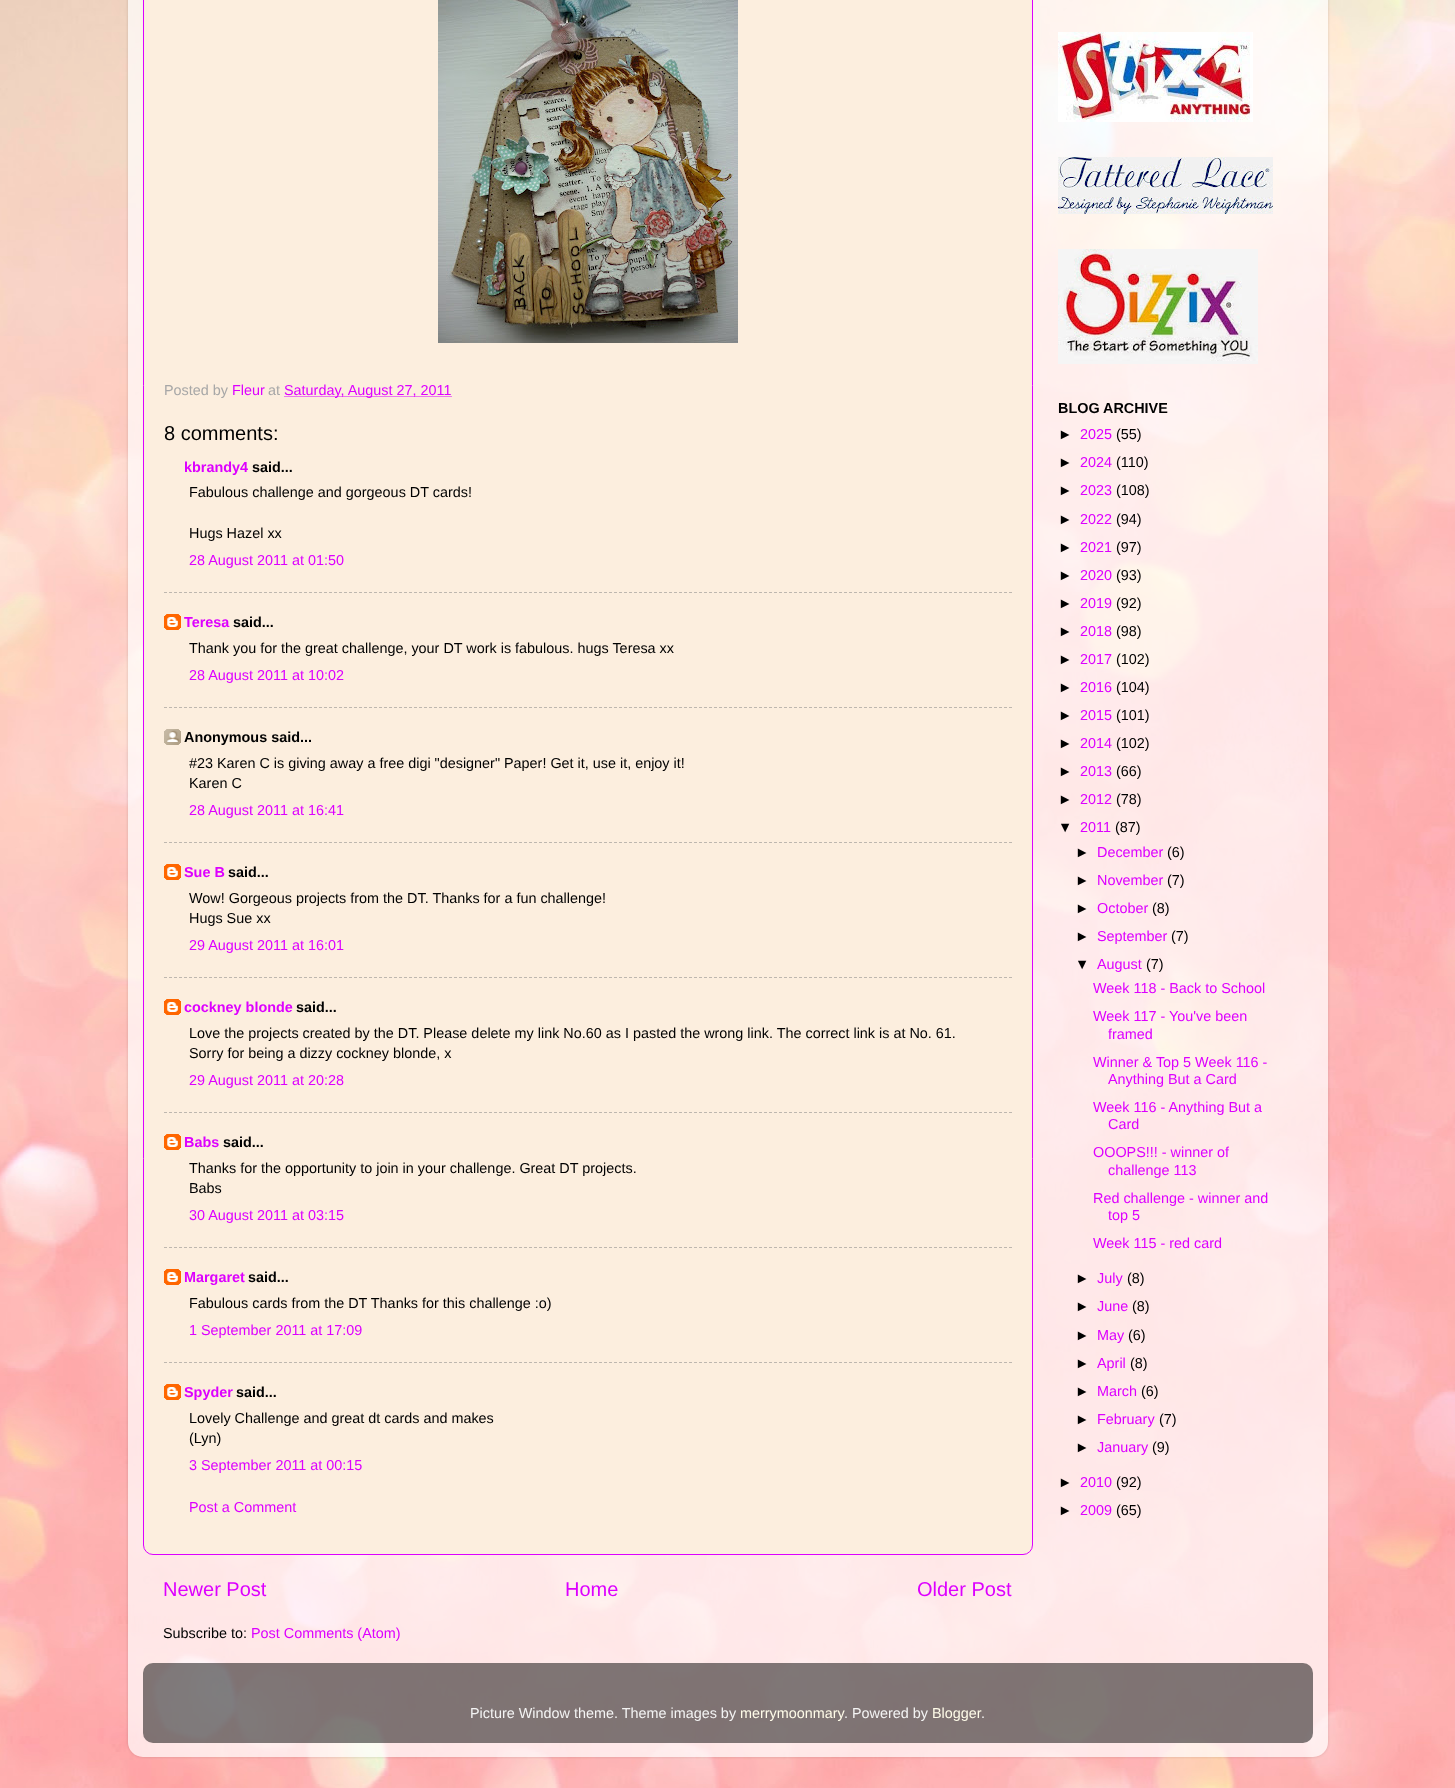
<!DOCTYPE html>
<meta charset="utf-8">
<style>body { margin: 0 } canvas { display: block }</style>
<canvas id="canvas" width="1455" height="1788"></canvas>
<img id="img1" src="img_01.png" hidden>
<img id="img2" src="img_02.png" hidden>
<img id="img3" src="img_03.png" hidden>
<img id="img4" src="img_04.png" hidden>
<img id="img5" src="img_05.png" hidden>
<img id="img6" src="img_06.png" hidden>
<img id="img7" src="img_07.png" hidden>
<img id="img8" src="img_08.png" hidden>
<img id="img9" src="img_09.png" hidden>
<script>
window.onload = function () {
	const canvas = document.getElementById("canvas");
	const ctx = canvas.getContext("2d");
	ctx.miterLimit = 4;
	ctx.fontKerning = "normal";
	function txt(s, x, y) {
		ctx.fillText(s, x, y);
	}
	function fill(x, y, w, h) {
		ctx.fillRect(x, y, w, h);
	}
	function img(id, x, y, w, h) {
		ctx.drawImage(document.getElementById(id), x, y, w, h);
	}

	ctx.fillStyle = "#FFFFFF";
	fill(0, 0, 1455, 1788);
	img("img1", 0, 0, 1455, 1788);
	ctx.save();
	ctx.beginPath();
	ctx.moveTo(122, 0);
	ctx.lineTo(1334, 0);
	ctx.lineTo(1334, 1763);
	ctx.lineTo(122, 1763);
	ctx.closePath();
	ctx.moveTo(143, -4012);
	ctx.lineTo(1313, -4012);
	ctx.bezierCurveTo(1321.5, -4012, 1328, -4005.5, 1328, -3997);
	ctx.lineTo(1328, 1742);
	ctx.bezierCurveTo(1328, 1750.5, 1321.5, 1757, 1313, 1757);
	ctx.lineTo(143, 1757);
	ctx.bezierCurveTo(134.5, 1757, 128, 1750.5, 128, 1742);
	ctx.lineTo(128, -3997);
	ctx.bezierCurveTo(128, -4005.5, 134.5, -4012, 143, -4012);
	ctx.closePath();
	ctx.clip("evenodd");
	ctx.fillStyle = "rgba(0, 0, 0, 0.15)";
	ctx.filter = "blur(1.5px)";
	ctx.beginPath();
	ctx.roundRect(128, -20, 1200, 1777, 15);
	ctx.fill();
	ctx.filter = "none";
	ctx.restore();
	img("img2", 128, 0, 1200, 1757);
	ctx.fillStyle = "#FCEEDE";
	ctx.beginPath();
	ctx.roundRect(143.5, -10.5, 889, 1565, 9.5);
	ctx.fill();
	ctx.strokeStyle = "#DD00FF";
	ctx.stroke();
	img("img3", 438, 0, 300, 343);
	ctx.beginPath();
	ctx.moveTo(284.5, 396.5);
	ctx.lineTo(452, 396.5);
	ctx.setLineDash([1, 1]);
	ctx.stroke();
	img("img4", 164, 614, 17, 16);
	ctx.beginPath();
	ctx.moveTo(164, 592.5);
	ctx.lineTo(1012, 592.5);
	ctx.strokeStyle = "#BEB7AF";
	ctx.setLineDash([3, 2]);
	ctx.stroke();
	img("img5", 164, 729, 17, 16);
	ctx.beginPath();
	ctx.moveTo(164, 707.5);
	ctx.lineTo(1012, 707.5);
	ctx.stroke();
	img("img4", 164, 864, 17, 16);
	ctx.beginPath();
	ctx.moveTo(164, 842.5);
	ctx.lineTo(1012, 842.5);
	ctx.stroke();
	img("img4", 164, 999, 17, 16);
	ctx.beginPath();
	ctx.moveTo(164, 977.5);
	ctx.lineTo(1012, 977.5);
	ctx.stroke();
	img("img4", 164, 1134, 17, 16);
	ctx.beginPath();
	ctx.moveTo(164, 1112.5);
	ctx.lineTo(1012, 1112.5);
	ctx.stroke();
	img("img4", 164, 1269, 17, 16);
	ctx.beginPath();
	ctx.moveTo(164, 1247.5);
	ctx.lineTo(1012, 1247.5);
	ctx.stroke();
	img("img4", 164, 1384, 17, 16);
	ctx.beginPath();
	ctx.moveTo(164, 1362.5);
	ctx.lineTo(1012, 1362.5);
	ctx.stroke();
	img("img6", 1058, 32, 195, 90);
	img("img7", 1058, 157, 215, 57);
	img("img8", 1058, 249, 200, 115);
	img("img9", 143, 1663, 1170, 80);
	ctx.font = "14.4px Liberation Sans";
	ctx.fillStyle = "#A7A7A7";
	txt("Posted by", 164, 395);
	ctx.fillStyle = "#DD00FF";
	txt("Fleur", 232, 395);
	ctx.fillStyle = "#A7A7A7";
	txt("at", 268, 395);
	ctx.fillStyle = "#DD00FF";
	txt("Saturday, August 27, 2011", 284, 395);
	ctx.font = "20px Liberation Sans";
	ctx.fillStyle = "#000000";
	txt("8 comments:", 164, 440);
	ctx.font = "bold 14.4px Liberation Sans";
	ctx.fillStyle = "#DD00FF";
	txt("kbrandy4", 184, 472);
	ctx.fillStyle = "#000000";
	txt("said...", 252, 472);
	ctx.font = "14.4px Liberation Sans";
	txt("Fabulous challenge and gorgeous DT cards!", 189, 497);
	txt("Hugs Hazel xx", 189, 538);
	ctx.fillStyle = "#DD00FF";
	txt("28 August 2011 at 01:50", 189, 565);
	ctx.font = "bold 14.4px Liberation Sans";
	txt("Teresa", 184, 627);
	ctx.fillStyle = "#000000";
	txt("said...", 233, 627);
	ctx.font = "14.4px Liberation Sans";
	txt("Thank you for the great challenge, your DT work is fabulous. hugs Teresa xx", 189, 653);
	ctx.fillStyle = "#DD00FF";
	txt("28 August 2011 at 10:02", 189, 680);
	ctx.font = "bold 14.4px Liberation Sans";
	ctx.fillStyle = "#000000";
	txt("Anonymous said...", 184, 742);
	ctx.font = "14.4px Liberation Sans";
	txt("#23 Karen C is giving away a free digi \"designer\" Paper! Get it, use it, enjoy it!", 189, 768);
	txt("Karen C", 189, 788);
	ctx.fillStyle = "#DD00FF";
	txt("28 August 2011 at 16:41", 189, 815);
	ctx.font = "bold 14.4px Liberation Sans";
	txt("Sue B", 184, 877);
	ctx.fillStyle = "#000000";
	txt("said...", 228, 877);
	ctx.font = "14.4px Liberation Sans";
	txt("Wow! Gorgeous projects from the DT. Thanks for a fun challenge!", 189, 903);
	txt("Hugs Sue xx", 189, 923);
	ctx.fillStyle = "#DD00FF";
	txt("29 August 2011 at 16:01", 189, 950);
	ctx.font = "bold 14.4px Liberation Sans";
	txt("cockney blonde", 184, 1012);
	ctx.fillStyle = "#000000";
	txt("said...", 296, 1012);
	ctx.font = "14.4px Liberation Sans";
	txt("Love the projects created by the DT. Please delete my link No.60 as I pasted the wrong link. The correct link is at No. 61.", 189, 1038);
	txt("Sorry for being a dizzy cockney blonde, x", 189, 1058);
	ctx.fillStyle = "#DD00FF";
	txt("29 August 2011 at 20:28", 189, 1085);
	ctx.font = "bold 14.4px Liberation Sans";
	txt("Babs", 184, 1147);
	ctx.fillStyle = "#000000";
	txt("said...", 223, 1147);
	ctx.font = "14.4px Liberation Sans";
	txt("Thanks for the opportunity to join in your challenge. Great DT projects.", 189, 1173);
	txt("Babs", 189, 1193);
	ctx.fillStyle = "#DD00FF";
	txt("30 August 2011 at 03:15", 189, 1220);
	ctx.font = "bold 14.4px Liberation Sans";
	txt("Margaret", 184, 1282);
	ctx.fillStyle = "#000000";
	txt("said...", 248, 1282);
	ctx.font = "14.4px Liberation Sans";
	txt("Fabulous cards from the DT Thanks for this challenge :o)", 189, 1308);
	ctx.fillStyle = "#DD00FF";
	txt("1 September 2011 at 17:09", 189, 1335);
	ctx.font = "bold 14.4px Liberation Sans";
	txt("Spyder", 184, 1397);
	ctx.fillStyle = "#000000";
	txt("said...", 236, 1397);
	ctx.font = "14.4px Liberation Sans";
	txt("Lovely Challenge and great dt cards and makes", 189, 1423);
	txt("(Lyn)", 189, 1443);
	ctx.fillStyle = "#DD00FF";
	txt("3 September 2011 at 00:15", 189, 1470);
	txt("Post a Comment", 189, 1512);
	ctx.font = "20px Liberation Sans";
	txt("Newer Post", 163, 1596);
	txt("Home", 565, 1596);
	txt("Older Post", 917, 1596);
	ctx.font = "14.4px Liberation Sans";
	ctx.fillStyle = "#000000";
	txt("Subscribe to:", 163, 1638);
	ctx.fillStyle = "#DD00FF";
	txt("Post Comments (Atom)", 251, 1638);
	ctx.font = "bold 14.4px Liberation Sans";
	ctx.fillStyle = "#000000";
	txt("BLOG ARCHIVE", 1058, 413);
	ctx.font = "14.4px Liberation Sans";
	txt("►", 1058, 439);
	ctx.fillStyle = "#DD00FF";
	txt("2025", 1080, 439);
	ctx.fillStyle = "#000000";
	txt("(55)", 1116, 439);
	txt("►", 1058, 467);
	ctx.fillStyle = "#DD00FF";
	txt("2024", 1080, 467);
	ctx.fillStyle = "#000000";
	txt("(110)", 1116, 467);
	txt("►", 1058, 495);
	ctx.fillStyle = "#DD00FF";
	txt("2023", 1080, 495);
	ctx.fillStyle = "#000000";
	txt("(108)", 1116, 495);
	txt("►", 1058, 524);
	ctx.fillStyle = "#DD00FF";
	txt("2022", 1080, 524);
	ctx.fillStyle = "#000000";
	txt("(94)", 1116, 524);
	txt("►", 1058, 552);
	ctx.fillStyle = "#DD00FF";
	txt("2021", 1080, 552);
	ctx.fillStyle = "#000000";
	txt("(97)", 1116, 552);
	txt("►", 1058, 580);
	ctx.fillStyle = "#DD00FF";
	txt("2020", 1080, 580);
	ctx.fillStyle = "#000000";
	txt("(93)", 1116, 580);
	txt("►", 1058, 608);
	ctx.fillStyle = "#DD00FF";
	txt("2019", 1080, 608);
	ctx.fillStyle = "#000000";
	txt("(92)", 1116, 608);
	txt("►", 1058, 636);
	ctx.fillStyle = "#DD00FF";
	txt("2018", 1080, 636);
	ctx.fillStyle = "#000000";
	txt("(98)", 1116, 636);
	txt("►", 1058, 664);
	ctx.fillStyle = "#DD00FF";
	txt("2017", 1080, 664);
	ctx.fillStyle = "#000000";
	txt("(102)", 1116, 664);
	txt("►", 1058, 692);
	ctx.fillStyle = "#DD00FF";
	txt("2016", 1080, 692);
	ctx.fillStyle = "#000000";
	txt("(104)", 1116, 692);
	txt("►", 1058, 720);
	ctx.fillStyle = "#DD00FF";
	txt("2015", 1080, 720);
	ctx.fillStyle = "#000000";
	txt("(101)", 1116, 720);
	txt("►", 1058, 748);
	ctx.fillStyle = "#DD00FF";
	txt("2014", 1080, 748);
	ctx.fillStyle = "#000000";
	txt("(102)", 1116, 748);
	txt("►", 1058, 776);
	ctx.fillStyle = "#DD00FF";
	txt("2013", 1080, 776);
	ctx.fillStyle = "#000000";
	txt("(66)", 1116, 776);
	txt("►", 1058, 804);
	ctx.fillStyle = "#DD00FF";
	txt("2012", 1080, 804);
	ctx.fillStyle = "#000000";
	txt("(78)", 1116, 804);
	txt("▼", 1058, 832);
	ctx.fillStyle = "#DD00FF";
	txt("2011", 1080, 832);
	ctx.fillStyle = "#000000";
	txt("(87)", 1115, 832);
	txt("►", 1075, 857);
	ctx.fillStyle = "#DD00FF";
	txt("December", 1097, 857);
	ctx.fillStyle = "#000000";
	txt("(6)", 1167, 857);
	txt("►", 1075, 885);
	ctx.fillStyle = "#DD00FF";
	txt("November", 1097, 885);
	ctx.fillStyle = "#000000";
	txt("(7)", 1167, 885);
	txt("►", 1075, 913);
	ctx.fillStyle = "#DD00FF";
	txt("October", 1097, 913);
	ctx.fillStyle = "#000000";
	txt("(8)", 1152, 913);
	txt("►", 1075, 941);
	ctx.fillStyle = "#DD00FF";
	txt("September", 1097, 941);
	ctx.fillStyle = "#000000";
	txt("(7)", 1171, 941);
	txt("▼", 1075, 969);
	ctx.fillStyle = "#DD00FF";
	txt("August", 1097, 969);
	ctx.fillStyle = "#000000";
	txt("(7)", 1146, 969);
	ctx.fillStyle = "#DD00FF";
	txt("Week 118 - Back to School", 1093, 993);
	txt("Week 117 - You've been", 1093, 1021);
	txt("framed", 1108, 1039);
	txt("Winner & Top 5 Week 116 -", 1093, 1067);
	txt("Anything But a Card", 1108, 1084);
	txt("Week 116 - Anything But a", 1093, 1112);
	txt("Card", 1108, 1129);
	txt("OOOPS!!! - winner of", 1093, 1157);
	txt("challenge 113", 1108, 1175);
	txt("Red challenge - winner and", 1093, 1203);
	txt("top 5", 1108, 1220);
	txt("Week 115 - red card", 1093, 1248);
	ctx.fillStyle = "#000000";
	txt("►", 1075, 1283);
	ctx.fillStyle = "#DD00FF";
	txt("July", 1097, 1283);
	ctx.fillStyle = "#000000";
	txt("(8)", 1127, 1283);
	txt("►", 1075, 1311);
	ctx.fillStyle = "#DD00FF";
	txt("June", 1097, 1311);
	ctx.fillStyle = "#000000";
	txt("(8)", 1132, 1311);
	txt("►", 1075, 1340);
	ctx.fillStyle = "#DD00FF";
	txt("May", 1097, 1340);
	ctx.fillStyle = "#000000";
	txt("(6)", 1128, 1340);
	txt("►", 1075, 1368);
	ctx.fillStyle = "#DD00FF";
	txt("April", 1097, 1368);
	ctx.fillStyle = "#000000";
	txt("(8)", 1130, 1368);
	txt("►", 1075, 1396);
	ctx.fillStyle = "#DD00FF";
	txt("March", 1097, 1396);
	ctx.fillStyle = "#000000";
	txt("(6)", 1141, 1396);
	txt("►", 1075, 1424);
	ctx.fillStyle = "#DD00FF";
	txt("February", 1097, 1424);
	ctx.fillStyle = "#000000";
	txt("(7)", 1159, 1424);
	txt("►", 1075, 1452);
	ctx.fillStyle = "#DD00FF";
	txt("January", 1097, 1452);
	ctx.fillStyle = "#000000";
	txt("(9)", 1152, 1452);
	txt("►", 1058, 1487);
	ctx.fillStyle = "#DD00FF";
	txt("2010", 1080, 1487);
	ctx.fillStyle = "#000000";
	txt("(92)", 1116, 1487);
	txt("►", 1058, 1515);
	ctx.fillStyle = "#DD00FF";
	txt("2009", 1080, 1515);
	ctx.fillStyle = "#000000";
	txt("(65)", 1116, 1515);
	ctx.fillStyle = "#F4F4F4";
	txt("Picture Window theme. Theme images by", 470, 1718);
	ctx.fillStyle = "#FFFCE9";
	txt("merrymoonmary", 740, 1718);
	ctx.fillStyle = "#F4F4F4";
	txt(". Powered by", 844, 1718);
	ctx.fillStyle = "#FFFCE9";
	txt("Blogger", 932, 1718);
	ctx.fillStyle = "#F4F4F4";
	txt(".", 981, 1718);
};
</script>
